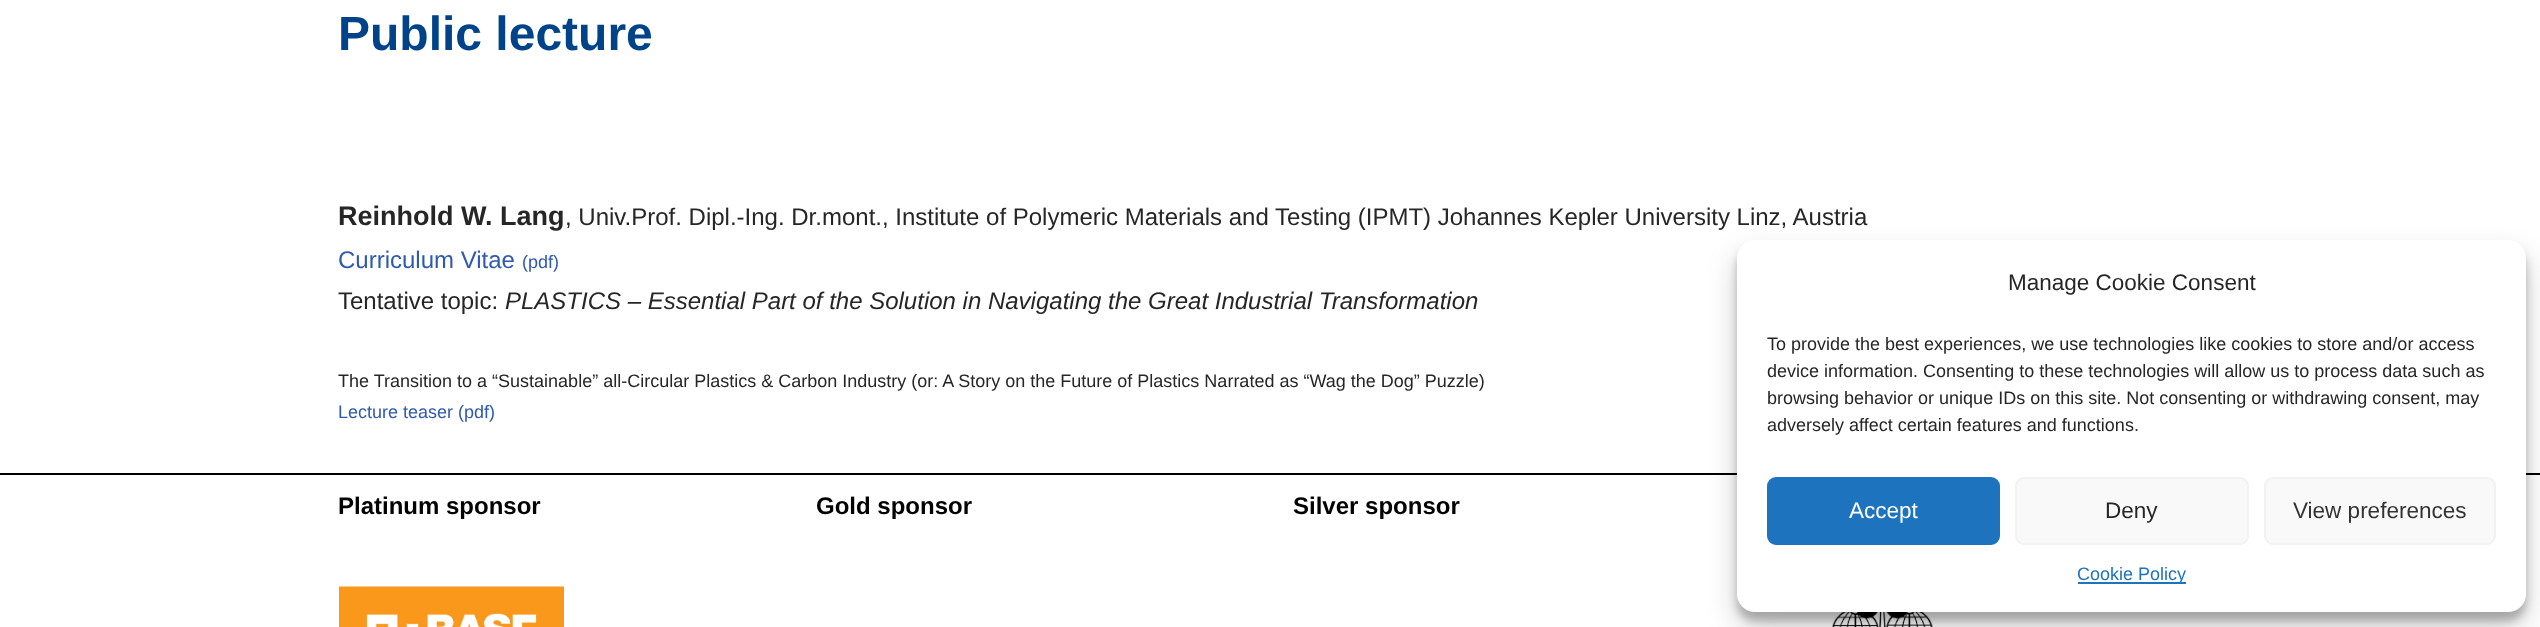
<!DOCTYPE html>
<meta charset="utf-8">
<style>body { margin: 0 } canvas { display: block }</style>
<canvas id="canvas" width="2540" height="627"></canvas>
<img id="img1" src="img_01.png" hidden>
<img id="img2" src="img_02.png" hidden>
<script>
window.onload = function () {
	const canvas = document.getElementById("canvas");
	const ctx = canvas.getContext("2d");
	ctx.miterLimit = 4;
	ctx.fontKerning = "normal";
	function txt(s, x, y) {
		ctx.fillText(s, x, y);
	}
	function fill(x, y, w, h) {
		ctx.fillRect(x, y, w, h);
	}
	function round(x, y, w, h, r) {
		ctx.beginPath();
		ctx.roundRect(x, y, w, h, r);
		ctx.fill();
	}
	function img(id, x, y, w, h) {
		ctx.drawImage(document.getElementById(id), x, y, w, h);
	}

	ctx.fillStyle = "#FFFFFF";
	fill(0, 0, 2540, 627);
	ctx.fillStyle = "#000000";
	fill(0, 473, 2540, 2);
	img("img1", 339, 586, 225, 41);
	img("img2", 1832, 612, 101, 15);
	ctx.fillStyle = "rgba(0, 0, 0, 0.23)";
	ctx.filter = "blur(4.5px)";
	ctx.beginPath();
	ctx.roundRect(1737, 249, 789, 372, 18);
	ctx.fill();
	ctx.filter = "none";
	ctx.fillStyle = "rgba(0, 0, 0, 0.19)";
	ctx.filter = "blur(15px)";
	ctx.beginPath();
	ctx.roundRect(1737, 255, 789, 372, 18);
	ctx.fill();
	ctx.filter = "none";
	ctx.fillStyle = "#FFFFFF";
	round(1737, 240, 789, 372, 18);
	ctx.fillStyle = "#1E73BE";
	ctx.beginPath();
	ctx.roundRect(1768, 478, 231, 66, 8);
	ctx.fill();
	ctx.strokeStyle = "#1E73BE";
	ctx.lineWidth = 2;
	ctx.stroke();
	ctx.fillStyle = "#F9F9F9";
	ctx.beginPath();
	ctx.roundRect(2016, 478, 232, 66, 8);
	ctx.fill();
	ctx.strokeStyle = "#F2F2F2";
	ctx.stroke();
	ctx.beginPath();
	ctx.roundRect(2265, 478, 230, 66, 8);
	ctx.fill();
	ctx.stroke();
	ctx.fillStyle = "#1E73BE";
	fill(2078, 582, 108, 2);
	ctx.font = "bold 48px Liberation Sans";
	ctx.fillStyle = "#004388";
	txt("Public lecture", 338, 50);
	ctx.font = "bold 27px Liberation Sans";
	ctx.fillStyle = "#272626";
	txt("Reinhold W. Lang", 338, 225);
	ctx.font = "24px Liberation Sans";
	txt(", Univ.Prof. Dipl.-Ing. Dr.mont., Institute of Polymeric Materials and Testing (IPMT) Johannes Kepler University Linz, Austria", 565, 225);
	ctx.fillStyle = "#2F5AAE";
	txt("Curriculum Vitae", 338, 268);
	ctx.font = "18px Liberation Sans";
	txt("(pdf)", 522, 268);
	ctx.font = "24px Liberation Sans";
	ctx.fillStyle = "#272626";
	txt("Tentative topic:", 338, 309);
	ctx.font = "italic 24px Liberation Sans";
	txt("PLASTICS – Essential Part of the Solution in Navigating the Great Industrial Transformation", 505, 309);
	ctx.font = "18px Liberation Sans";
	txt("The Transition to a “Sustainable” all-Circular Plastics & Carbon Industry (or: A Story on the Future of Plastics Narrated as “Wag the Dog” Puzzle)", 338, 387);
	ctx.fillStyle = "#2F5AAE";
	txt("Lecture teaser (pdf)", 338, 418);
	ctx.font = "bold 24px Liberation Sans";
	ctx.fillStyle = "#020202";
	txt("Platinum sponsor", 338, 514);
	txt("Gold sponsor", 816, 514);
	txt("Silver sponsor", 1293, 514);
	ctx.font = "22.5px Liberation Sans";
	ctx.fillStyle = "#272626";
	txt("Manage Cookie Consent", 2008, 290);
	ctx.font = "18px Liberation Sans";
	txt("To provide the best experiences, we use technologies like cookies to store and/or access", 1767, 350);
	txt("device information. Consenting to these technologies will allow us to process data such as", 1767, 377);
	txt("browsing behavior or unique IDs on this site. Not consenting or withdrawing consent, may", 1767, 404);
	txt("adversely affect certain features and functions.", 1767, 431);
	ctx.font = "22.5px Liberation Sans";
	ctx.fillStyle = "#FFFFFF";
	txt("Accept", 1849, 518);
	ctx.fillStyle = "#272626";
	txt("Deny", 2105, 518);
	ctx.fillStyle = "#333333";
	txt("View preferences", 2293, 518);
	ctx.font = "18px Liberation Sans";
	ctx.fillStyle = "#1E73BE";
	txt("Cookie Policy", 2077, 580);
};
</script>
